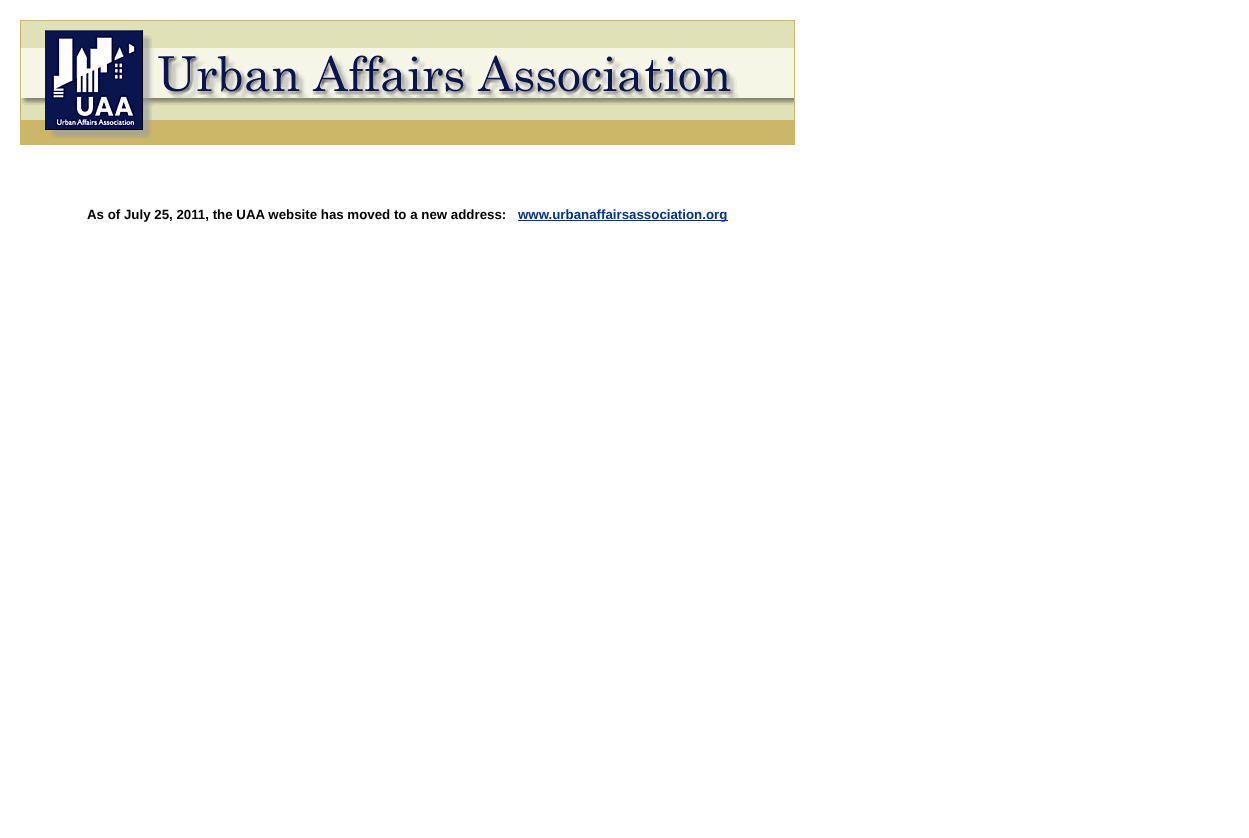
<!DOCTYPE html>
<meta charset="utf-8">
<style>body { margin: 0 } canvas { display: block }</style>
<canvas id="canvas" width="1249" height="838"></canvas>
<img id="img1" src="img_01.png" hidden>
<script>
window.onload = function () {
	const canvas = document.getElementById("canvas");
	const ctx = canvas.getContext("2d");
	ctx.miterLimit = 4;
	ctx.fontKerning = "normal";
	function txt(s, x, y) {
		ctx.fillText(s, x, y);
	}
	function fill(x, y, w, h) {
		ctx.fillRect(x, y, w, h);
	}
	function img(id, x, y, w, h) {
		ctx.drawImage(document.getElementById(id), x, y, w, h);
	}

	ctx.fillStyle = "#FFFFFF";
	fill(0, 0, 1249, 838);
	img("img1", 20, 20, 775, 125);
	ctx.fillStyle = "#003399";
	fill(518, 220, 210, 1);
	ctx.font = "bold 13.3px Liberation Sans";
	ctx.fillStyle = "#000000";
	txt("As of July 25, 2011, the UAA website has moved to a new address:", 87, 219);
	ctx.fillStyle = "#003399";
	txt("www.urbanaffairsassociation.org", 518, 219);
};
</script>
